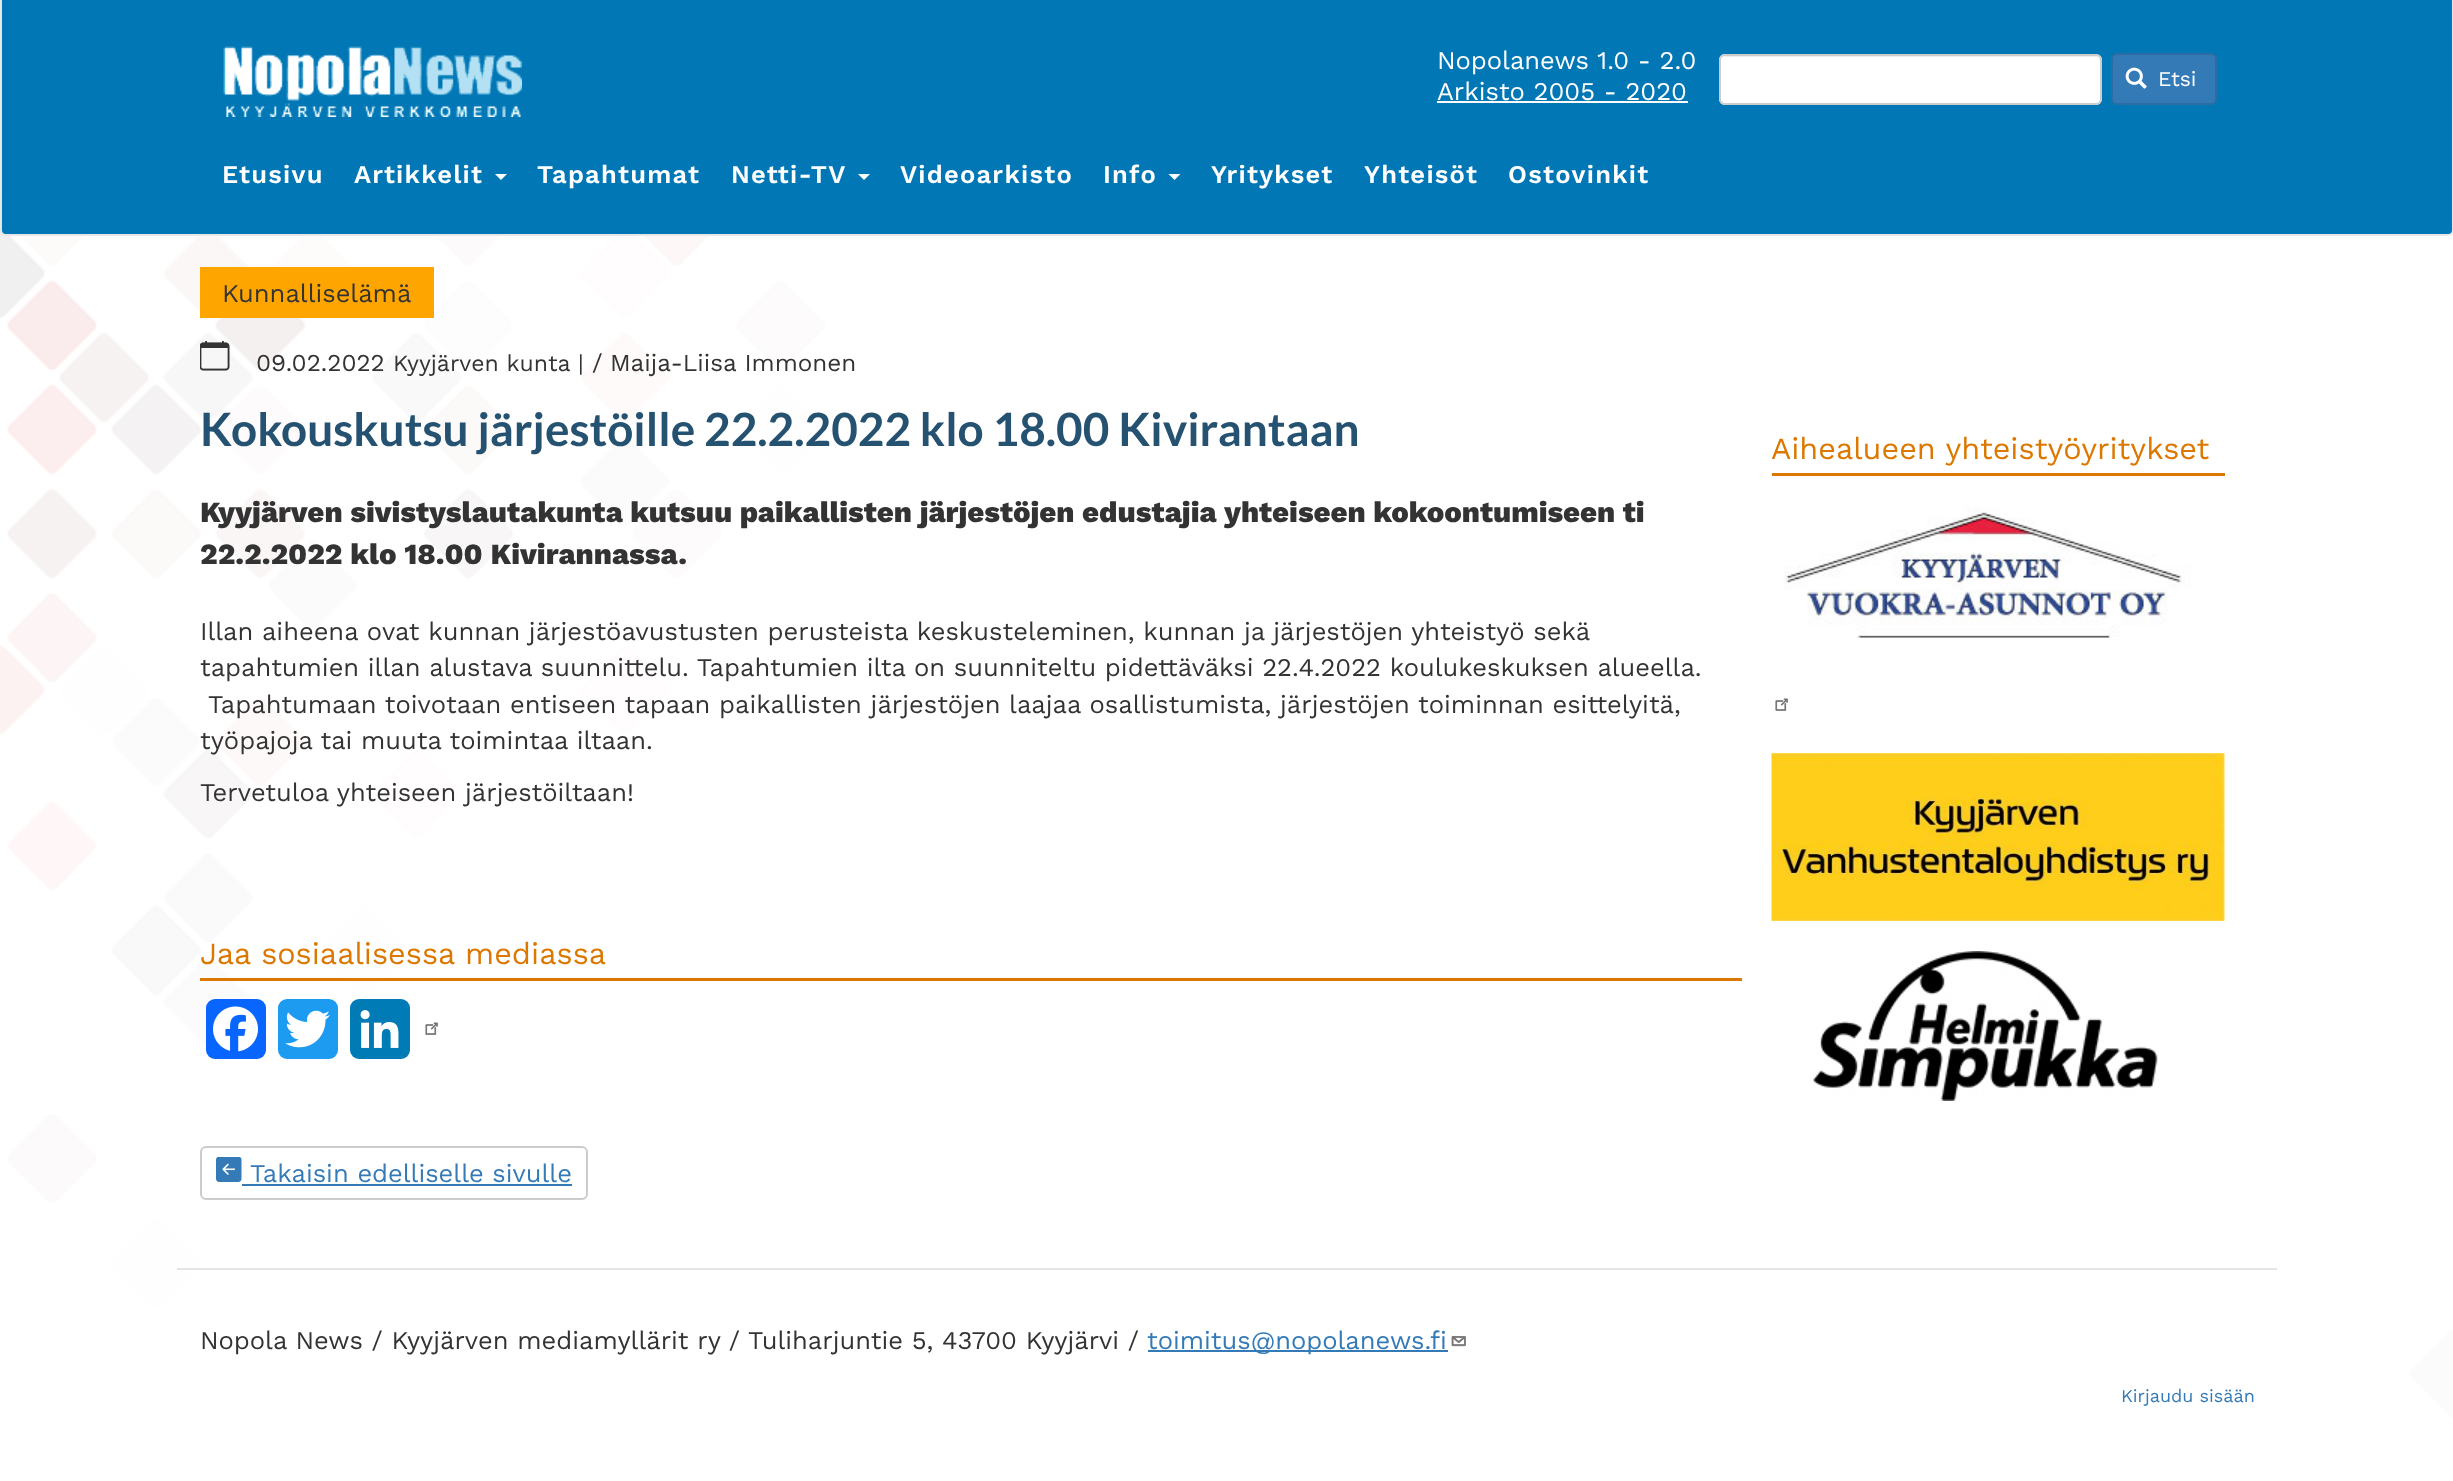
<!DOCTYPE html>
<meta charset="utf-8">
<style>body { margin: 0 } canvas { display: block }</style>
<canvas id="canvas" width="2453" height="1481"></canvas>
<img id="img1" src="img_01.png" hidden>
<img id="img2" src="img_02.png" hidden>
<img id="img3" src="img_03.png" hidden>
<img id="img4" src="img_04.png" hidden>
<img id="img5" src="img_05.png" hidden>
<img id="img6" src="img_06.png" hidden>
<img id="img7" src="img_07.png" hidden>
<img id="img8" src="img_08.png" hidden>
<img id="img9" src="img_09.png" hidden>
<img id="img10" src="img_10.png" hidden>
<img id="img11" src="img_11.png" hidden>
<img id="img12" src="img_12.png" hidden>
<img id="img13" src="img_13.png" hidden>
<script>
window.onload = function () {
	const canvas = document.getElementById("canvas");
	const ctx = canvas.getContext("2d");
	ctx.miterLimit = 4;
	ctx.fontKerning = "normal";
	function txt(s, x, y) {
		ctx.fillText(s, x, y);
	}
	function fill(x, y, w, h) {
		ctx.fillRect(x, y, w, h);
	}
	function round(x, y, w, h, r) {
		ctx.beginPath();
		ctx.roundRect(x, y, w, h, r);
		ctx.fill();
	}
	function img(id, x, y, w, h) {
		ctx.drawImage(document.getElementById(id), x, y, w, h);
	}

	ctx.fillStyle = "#FFFFFF";
	fill(0, 0, 2453, 1481);
	img("img1", 0, 230, 2453, 1189);
	ctx.fillStyle = "#0277B6";
	ctx.beginPath();
	ctx.roundRect(1, -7, 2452, 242, 5);
	ctx.fill();
	ctx.strokeStyle = "#E7E7E7";
	ctx.lineWidth = 2;
	ctx.stroke();
	img("img2", 223, 46, 299, 71);
	ctx.fillStyle = "#FFFFFF";
	fill(1437, 101, 251, 2);
	round(1719, 54, 383, 51, 6);
	ctx.fillStyle = "#ECECEC";
	ctx.beginPath();
	ctx.moveTo(1725, 57);
	ctx.lineTo(2096, 57);
	ctx.bezierCurveTo(2098, 57, 2100, 59, 2100, 62);
	ctx.lineTo(2100, 61);
	ctx.bezierCurveTo(2100, 58, 2098, 56, 2095, 56);
	ctx.lineTo(1726, 56);
	ctx.bezierCurveTo(1724, 56, 1723, 57, 1722, 58);
	ctx.closePath();
	ctx.fill();
	ctx.beginPath();
	ctx.roundRect(1720, 55, 381, 49, 5);
	ctx.strokeStyle = "#CCCCCC";
	ctx.stroke();
	ctx.fillStyle = "#337AB7";
	ctx.beginPath();
	ctx.roundRect(2112, 54, 104, 50, 5);
	ctx.fill();
	ctx.strokeStyle = "#2E6DA4";
	ctx.stroke();
	img("img3", 2125, 67, 22, 22);
	ctx.fillStyle = "#FFFFFF";
	ctx.beginPath();
	ctx.moveTo(495, 174);
	ctx.lineTo(507, 174);
	ctx.lineTo(501, 180);
	ctx.closePath();
	ctx.fill();
	ctx.beginPath();
	ctx.moveTo(858, 174);
	ctx.lineTo(870, 174);
	ctx.lineTo(864, 180);
	ctx.closePath();
	ctx.fill();
	ctx.beginPath();
	ctx.moveTo(1168.5, 174);
	ctx.lineTo(1180.5, 174);
	ctx.lineTo(1174.5, 180);
	ctx.closePath();
	ctx.fill();
	ctx.fillStyle = "#FFA500";
	fill(200, 267, 234, 51);
	img("img4", 200, 341, 30, 30);
	ctx.fillStyle = "#DC7800";
	fill(200, 978, 1542, 3);
	ctx.fillStyle = "#0866FF";
	round(206, 999, 60, 60, 9);
	img("img5", 213, 1006, 45, 46);
	ctx.fillStyle = "#1D9BF0";
	round(278, 999, 60, 60, 9);
	img("img6", 285, 1010, 45, 38);
	ctx.fillStyle = "#007BB5";
	round(350, 999, 60, 60, 9);
	img("img7", 360, 1010, 39, 38);
	img("img8", 425, 1022, 13, 13);
	ctx.fillStyle = "#DC7800";
	fill(1772, 473, 453, 3);
	img("img9", 1783, 507, 409, 131);
	img("img8", 1775, 698, 13, 13);
	img("img10", 1771, 753, 454, 168);
	img("img11", 1813, 951, 345, 150);
	ctx.beginPath();
	ctx.roundRect(201, 1147, 386, 52, 5);
	ctx.strokeStyle = "#CCCCCC";
	ctx.stroke();
	img("img12", 216, 1157, 26, 25);
	ctx.fillStyle = "#337AB7";
	fill(242, 1184, 330, 2);
	ctx.fillStyle = "#E5E5E5";
	fill(177, 1268, 2100, 2);
	ctx.fillStyle = "#337AB7";
	fill(1148, 1350, 300, 2);
	img("img13", 1451, 1336, 15, 11);
	ctx.font = "25.5px Work Sans";
	ctx.fillStyle = "#FFFFFF";
	txt("Nopolanews 1.0 - 2.0", 1437, 69);
	txt("Arkisto 2005 - 2020", 1437, 100);
	ctx.font = "21px Work Sans";
	txt("Etsi", 2158, 86);
	ctx.letterSpacing = "1.25px";
	ctx.font = "600 25.5px Work Sans";
	txt("Etusivu", 222, 183);
	txt("Artikkelit", 354, 183);
	txt("Tapahtumat", 537, 183);
	txt("Netti-TV", 731, 183);
	txt("Videoarkisto", 900, 183);
	txt("Info", 1103, 183);
	txt("Yritykset", 1211, 183);
	txt("Yhteisöt", 1364, 183);
	txt("Ostovinkit", 1508, 183);
	ctx.letterSpacing = "0px";
	ctx.font = "25.5px Work Sans";
	ctx.fillStyle = "#333333";
	txt("Kunnalliselämä", 222, 302);
	ctx.font = "24.25px Work Sans";
	txt("09.02.2022", 256, 371);
	ctx.font = "23px Work Sans";
	txt("Kyyjärven kunta", 393, 371);
	txt("|", 578, 371);
	ctx.font = "24.25px Work Sans";
	txt("/", 592, 371);
	txt("Maija-Liisa Immonen", 610, 371);
	ctx.font = "bold 45.9px Lato";
	ctx.fillStyle = "#265272";
	txt("Kokouskutsu järjestöille 22.2.2022 klo 18.00 Kivirantaan", 200, 446);
	ctx.wordSpacing = "-0.25px";
	ctx.font = "800 29.35px Work Sans";
	ctx.fillStyle = "#333333";
	txt("Kyyjärven sivistyslautakunta kutsuu paikallisten järjestöjen edustajia yhteiseen kokoontumiseen ti", 200, 522);
	ctx.wordSpacing = "0px";
	txt("22.2.2022 klo 18.00 Kivirannassa.", 200, 564);
	ctx.font = "25.5px Work Sans";
	txt("Illan aiheena ovat kunnan järjestöavustusten perusteista keskusteleminen, kunnan ja järjestöjen yhteistyö sekä", 200, 640);
	txt("tapahtumien illan alustava suunnittelu. Tapahtumien ilta on suunniteltu pidettäväksi 22.4.2022 koulukeskuksen alueella.", 200, 676);
	txt("Tapahtumaan toivotaan entiseen tapaan paikallisten järjestöjen laajaa osallistumista, järjestöjen toiminnan esittelyitä,", 208, 713);
	txt("työpajoja tai muuta toimintaa iltaan.", 200, 749);
	txt("Tervetuloa yhteiseen järjestöiltaan!", 200, 801);
	ctx.font = "30.6px Work Sans";
	ctx.fillStyle = "#DC7800";
	txt("Jaa sosiaalisessa mediassa", 200, 964);
	txt("Aihealueen yhteistyöyritykset", 1771, 459);
	ctx.font = "25.5px Work Sans";
	ctx.fillStyle = "#337AB7";
	txt("Takaisin edelliselle sivulle", 250, 1182);
	ctx.fillStyle = "#333333";
	txt("Nopola News / Kyyjärven mediamyllärit ry / Tuliharjuntie 5, 43700 Kyyjärvi /", 200, 1349);
	ctx.fillStyle = "#337AB7";
	txt("toimitus@nopolanews.fi", 1147, 1349);
	ctx.font = "18px Work Sans";
	txt("Kirjaudu sisään", 2121, 1402);
};
</script>
